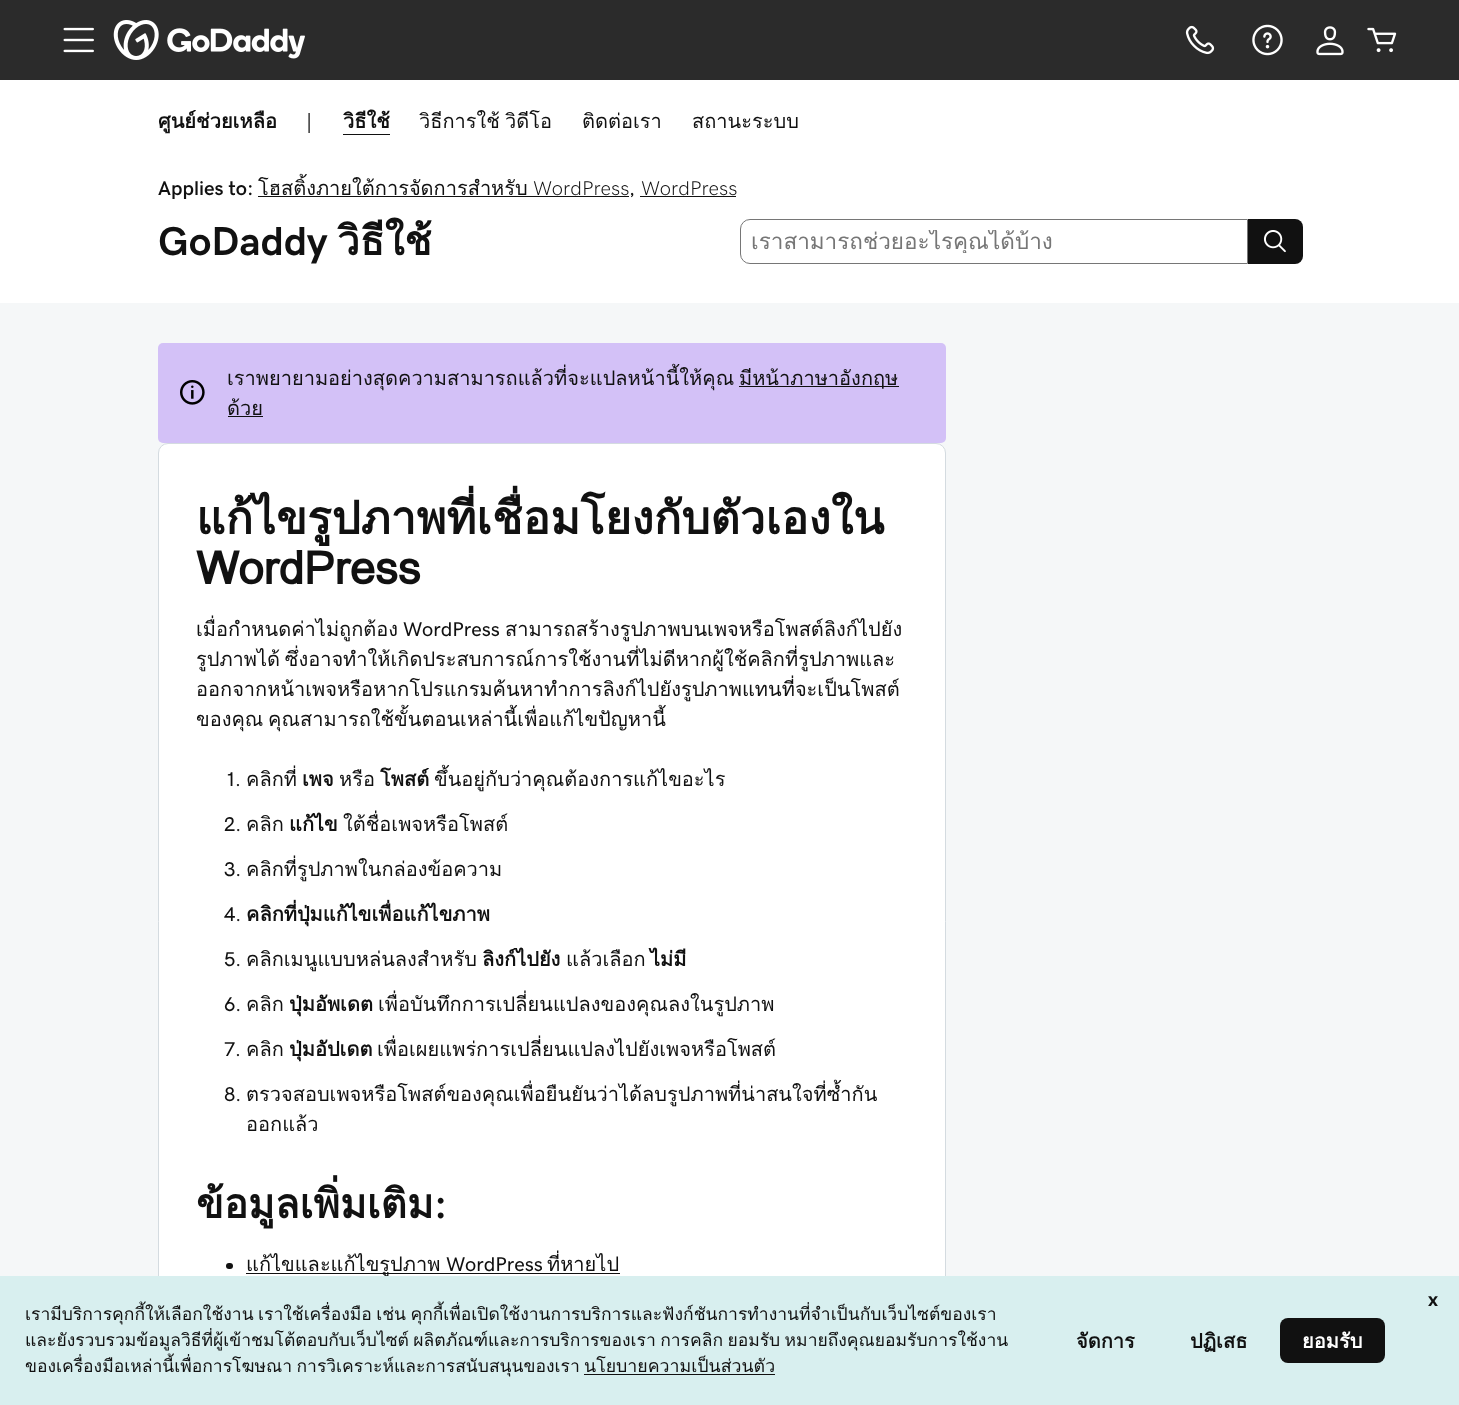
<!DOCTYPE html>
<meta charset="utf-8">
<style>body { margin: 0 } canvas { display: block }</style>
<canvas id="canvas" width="1459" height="1405"></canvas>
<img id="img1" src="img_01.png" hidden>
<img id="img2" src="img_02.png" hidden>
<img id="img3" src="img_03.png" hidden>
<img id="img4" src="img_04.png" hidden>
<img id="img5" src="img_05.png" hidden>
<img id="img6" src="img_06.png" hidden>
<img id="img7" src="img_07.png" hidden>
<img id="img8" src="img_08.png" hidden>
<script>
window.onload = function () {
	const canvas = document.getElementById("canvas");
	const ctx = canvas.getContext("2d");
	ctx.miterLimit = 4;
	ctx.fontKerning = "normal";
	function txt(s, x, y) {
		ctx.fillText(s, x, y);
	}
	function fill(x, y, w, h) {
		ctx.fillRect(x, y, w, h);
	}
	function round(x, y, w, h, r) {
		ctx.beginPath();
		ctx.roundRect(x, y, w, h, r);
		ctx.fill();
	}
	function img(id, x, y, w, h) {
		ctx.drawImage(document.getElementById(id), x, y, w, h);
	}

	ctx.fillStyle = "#FFFFFF";
	fill(0, 0, 1459, 1405);
	ctx.fillStyle = "#2B2B2B";
	fill(0, 0, 1459, 80);
	img("img1", 63, 27, 31, 26);
	img("img2", 113, 20, 192, 40);
	img("img3", 1185, 25, 30, 30);
	img("img4", 1252, 24, 31, 32);
	img("img5", 1316, 26, 28, 30);
	img("img6", 1367, 27, 30, 26);
	ctx.fillStyle = "#111111";
	fill(343, 134, 47, 1);
	fill(258, 196, 371, 1);
	fill(640, 196, 96, 1);
	ctx.beginPath();
	ctx.roundRect(740.5, 219.5, 507, 44, [9.5, 0, 0, 9.5]);
	ctx.strokeStyle = "#767676";
	ctx.stroke();
	ctx.beginPath();
	ctx.roundRect(1248, 219, 55, 45, [0, 8, 8, 0]);
	ctx.fill();
	img("img7", 1263, 230, 23, 23);
	ctx.fillStyle = "#F5F7F8";
	fill(0, 303, 1459, 973);
	ctx.fillStyle = "#D3C1F7";
	round(158, 343, 788, 100, 5);
	img("img8", 180, 380, 25, 25);
	ctx.fillStyle = "#111111";
	fill(739, 386, 160, 1);
	fill(228, 416, 35, 1);
	ctx.fillStyle = "#FFFFFF";
	ctx.beginPath();
	ctx.roundRect(158.5, 443.5, 787, 956, 9.5);
	ctx.fill();
	ctx.strokeStyle = "#D4DBE0";
	ctx.stroke();
	ctx.fillStyle = "#111111";
	round(226, 1263, 7, 6, 3);
	fill(246, 1273, 374, 1);
	ctx.font = "bold 20px Loma";
	txt("ศูนย์ช่วยเหลือ", 158, 128);
	ctx.font = "20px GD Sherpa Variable";
	txt("|", 306, 128);
	ctx.font = "bold 20px Loma";
	txt("วิธีใช้", 343, 128);
	ctx.font = "20px Loma";
	txt("วิธีการใช้", 419, 128);
	txt("วิดีโอ", 505, 128);
	txt("ติดต่อเรา", 582, 128);
	txt("สถานะระบบ", 692, 128);
	ctx.font = "600 20px GD Sherpa Variable";
	txt("Applies to:", 158, 195);
	ctx.font = "20px Loma";
	txt("โฮสติ้งภายใต้การจัดการสำหรับ", 258, 195);
	ctx.font = "200 20px GD Sherpa Variable";
	txt("WordPress", 533, 195);
	ctx.font = "20px GD Sherpa Variable";
	txt(",", 629, 195);
	ctx.font = "200 20px GD Sherpa Variable";
	txt("WordPress", 641, 195);
	ctx.font = "bold 40.5px GD Sherpa Variable";
	txt("GoDaddy", 158, 255);
	ctx.font = "bold 40.5px Loma";
	txt("วิธีใช้", 337, 255);
	ctx.save();
	ctx.beginPath();
	ctx.rect(751, 230, 485, 23);
	ctx.clip();
	ctx.font = "22.5px Loma";
	ctx.fillStyle = "#767676";
	txt("เราสามารถช่วยอะไรคุณได้บ้าง", 751, 249);
	ctx.restore();
	ctx.font = "20px Loma";
	txt("เราพยายามอย่างสุดความสามารถแล้วที่จะแปลหน้านี้ให้คุณ", 227, 385);
	txt("มีหน้าภาษาอังกฤษ", 739, 385);
	txt("ด้วย", 227, 415);
	ctx.font = "bold 45.6px Loma";
	txt("แก้ไขรูปภาพที่เชื่อมโยงกับตัวเองใน", 196, 534);
	txt("WordPress", 196, 584);
	ctx.font = "20px Loma";
	txt("เมื่อกำหนดค่าไม่ถูกต้อง", 196, 636);
	ctx.font = "20px GD Sherpa Variable";
	txt("WordPress", 403, 636);
	ctx.font = "20px Loma";
	txt("สามารถสร้างรูปภาพบนเพจหรือโพสต์ลิงก์ไปยัง", 505, 636);
	ctx.wordSpacing = "-2px";
	txt("รูปภาพได้ ซึ่งอาจทำให้เกิดประสบการณ์การใช้งานที่ไม่ดีหากผู้ใช้คลิกที่รูปภาพและ", 196, 666);
	ctx.wordSpacing = "0px";
	txt("ออกจากหน้าเพจหรือหากโปรแกรมค้นหาทำการลิงก์ไปยังรูปภาพแทนที่จะเป็นโพสต์", 196, 696);
	ctx.wordSpacing = "-2px";
	txt("ของคุณ คุณสามารถใช้ขั้นตอนเหล่านี้เพื่อแก้ไขปัญหานี้", 196, 726);
	ctx.wordSpacing = "0px";
	ctx.font = "20px GD Sherpa Variable";
	txt("1.", 226, 786);
	ctx.font = "20px Loma";
	txt("คลิกที่", 246, 786);
	ctx.font = "bold 20px Loma";
	txt("เพจ", 302, 786);
	ctx.font = "20px Loma";
	txt("หรือ", 339, 786);
	ctx.font = "bold 20px Loma";
	txt("โพสต์", 380, 786);
	ctx.font = "20px Loma";
	txt("ขึ้นอยู่กับว่าคุณต้องการแก้ไขอะไร", 434, 786);
	ctx.font = "20px GD Sherpa Variable";
	txt("2.", 224, 831);
	ctx.font = "20px Loma";
	txt("คลิก", 246, 831);
	ctx.font = "bold 20px Loma";
	txt("แก้ไข", 289, 831);
	ctx.font = "20px Loma";
	txt("ใต้ชื่อเพจหรือโพสต์", 343, 831);
	ctx.font = "20px GD Sherpa Variable";
	txt("3.", 224, 876);
	ctx.font = "20px Loma";
	txt("คลิกที่รูปภาพในกล่องข้อความ", 246, 876);
	ctx.font = "20px GD Sherpa Variable";
	txt("4.", 224, 921);
	ctx.font = "bold 20px Loma";
	txt("คลิกที่ปุ่มแก้ไขเพื่อแก้ไขภาพ", 246, 921);
	ctx.font = "20px GD Sherpa Variable";
	txt("5.", 224, 966);
	ctx.font = "20px Loma";
	txt("คลิกเมนูแบบหล่นลงสำหรับ", 246, 966);
	ctx.font = "bold 20px Loma";
	txt("ลิงก์ไปยัง", 482, 966);
	ctx.font = "20px Loma";
	txt("แล้วเลือก", 566, 966);
	ctx.font = "bold 20px Loma";
	txt("ไม่มี", 650, 966);
	ctx.font = "20px GD Sherpa Variable";
	txt("6.", 224, 1011);
	ctx.font = "20px Loma";
	txt("คลิก", 246, 1011);
	ctx.font = "bold 20px Loma";
	txt("ปุ่มอัพเดต", 289, 1011);
	ctx.font = "20px Loma";
	txt("เพื่อบันทึกการเปลี่ยนแปลงของคุณลงในรูปภาพ", 378, 1011);
	ctx.font = "20px GD Sherpa Variable";
	txt("7.", 224, 1056);
	ctx.font = "20px Loma";
	txt("คลิก", 246, 1056);
	ctx.font = "bold 20px Loma";
	txt("ปุ่มอัปเดต", 289, 1056);
	ctx.font = "20px Loma";
	txt("เพื่อเผยแพร่การเปลี่ยนแปลงไปยังเพจหรือโพสต์", 377, 1056);
	ctx.font = "20px GD Sherpa Variable";
	txt("8.", 224, 1101);
	ctx.font = "20px Loma";
	txt("ตรวจสอบเพจหรือโพสต์ของคุณเพื่อยืนยันว่าได้ลบรูปภาพที่น่าสนใจที่ซ้ำกัน", 246, 1101);
	txt("ออกแล้ว", 246, 1131);
	ctx.font = "bold 40.5px Loma";
	txt("ข้อมูลเพิ่มเติม", 196, 1218);
	ctx.font = "bold 40.5px GD Sherpa Variable";
	txt(":", 434, 1218);
	ctx.font = "20px Loma";
	txt("แก้ไขและแก้ไขรูปภาพ", 246, 1271);
	ctx.font = "20px GD Sherpa Variable";
	txt("WordPress", 446, 1271);
	ctx.font = "20px Loma";
	txt("ที่หายไป", 547, 1271);
	ctx.fillStyle = "#D8EFEF";
	fill(0, 1276, 1459, 129);
	ctx.font = "17.5px Loma";
	ctx.fillStyle = "#111111";
	txt("เรามีบริการคุกกี้ให้เลือกใช้งาน", 25, 1320);
	ctx.wordSpacing = "-1.5px";
	txt("เราใช้เครื่องมือ เช่น คุกกี้เพื่อเปิดใช้งานการบริการและฟังก์ชันการทำงานที่จำเป็นกับเว็บไซต์ของเรา", 258, 1320);
	txt("และยังรวบรวมข้อมูลวิธีที่ผู้เข้าชมโต้ตอบกับเว็บไซต์ ผลิตภัณฑ์และการบริการของเรา การคลิก ยอมรับ หมายถึงคุณยอมรับการใช้งาน", 25, 1346);
	txt("ของเครื่องมือเหล่านี้เพื่อการโฆษณา การวิเคราะห์และการสนับสนุนของเรา", 25, 1372);
	ctx.wordSpacing = "0px";
	ctx.font = "17.75px Loma";
	txt("นโยบายความเป็นส่วนตัว", 584, 1372);
	fill(584, 1374, 191, 1);
	ctx.font = "bold 20px Loma";
	txt("จัดการ", 1076, 1348);
	txt("ปฏิเสธ", 1190, 1348);
	round(1280, 1318, 105, 45, 8);
	ctx.fillStyle = "#FFFFFF";
	txt("ยอมรับ", 1302, 1348);
	ctx.font = "bold 20px 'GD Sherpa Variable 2'";
	ctx.fillStyle = "#111111";
	txt("x", 1428, 1306);
};
</script>
